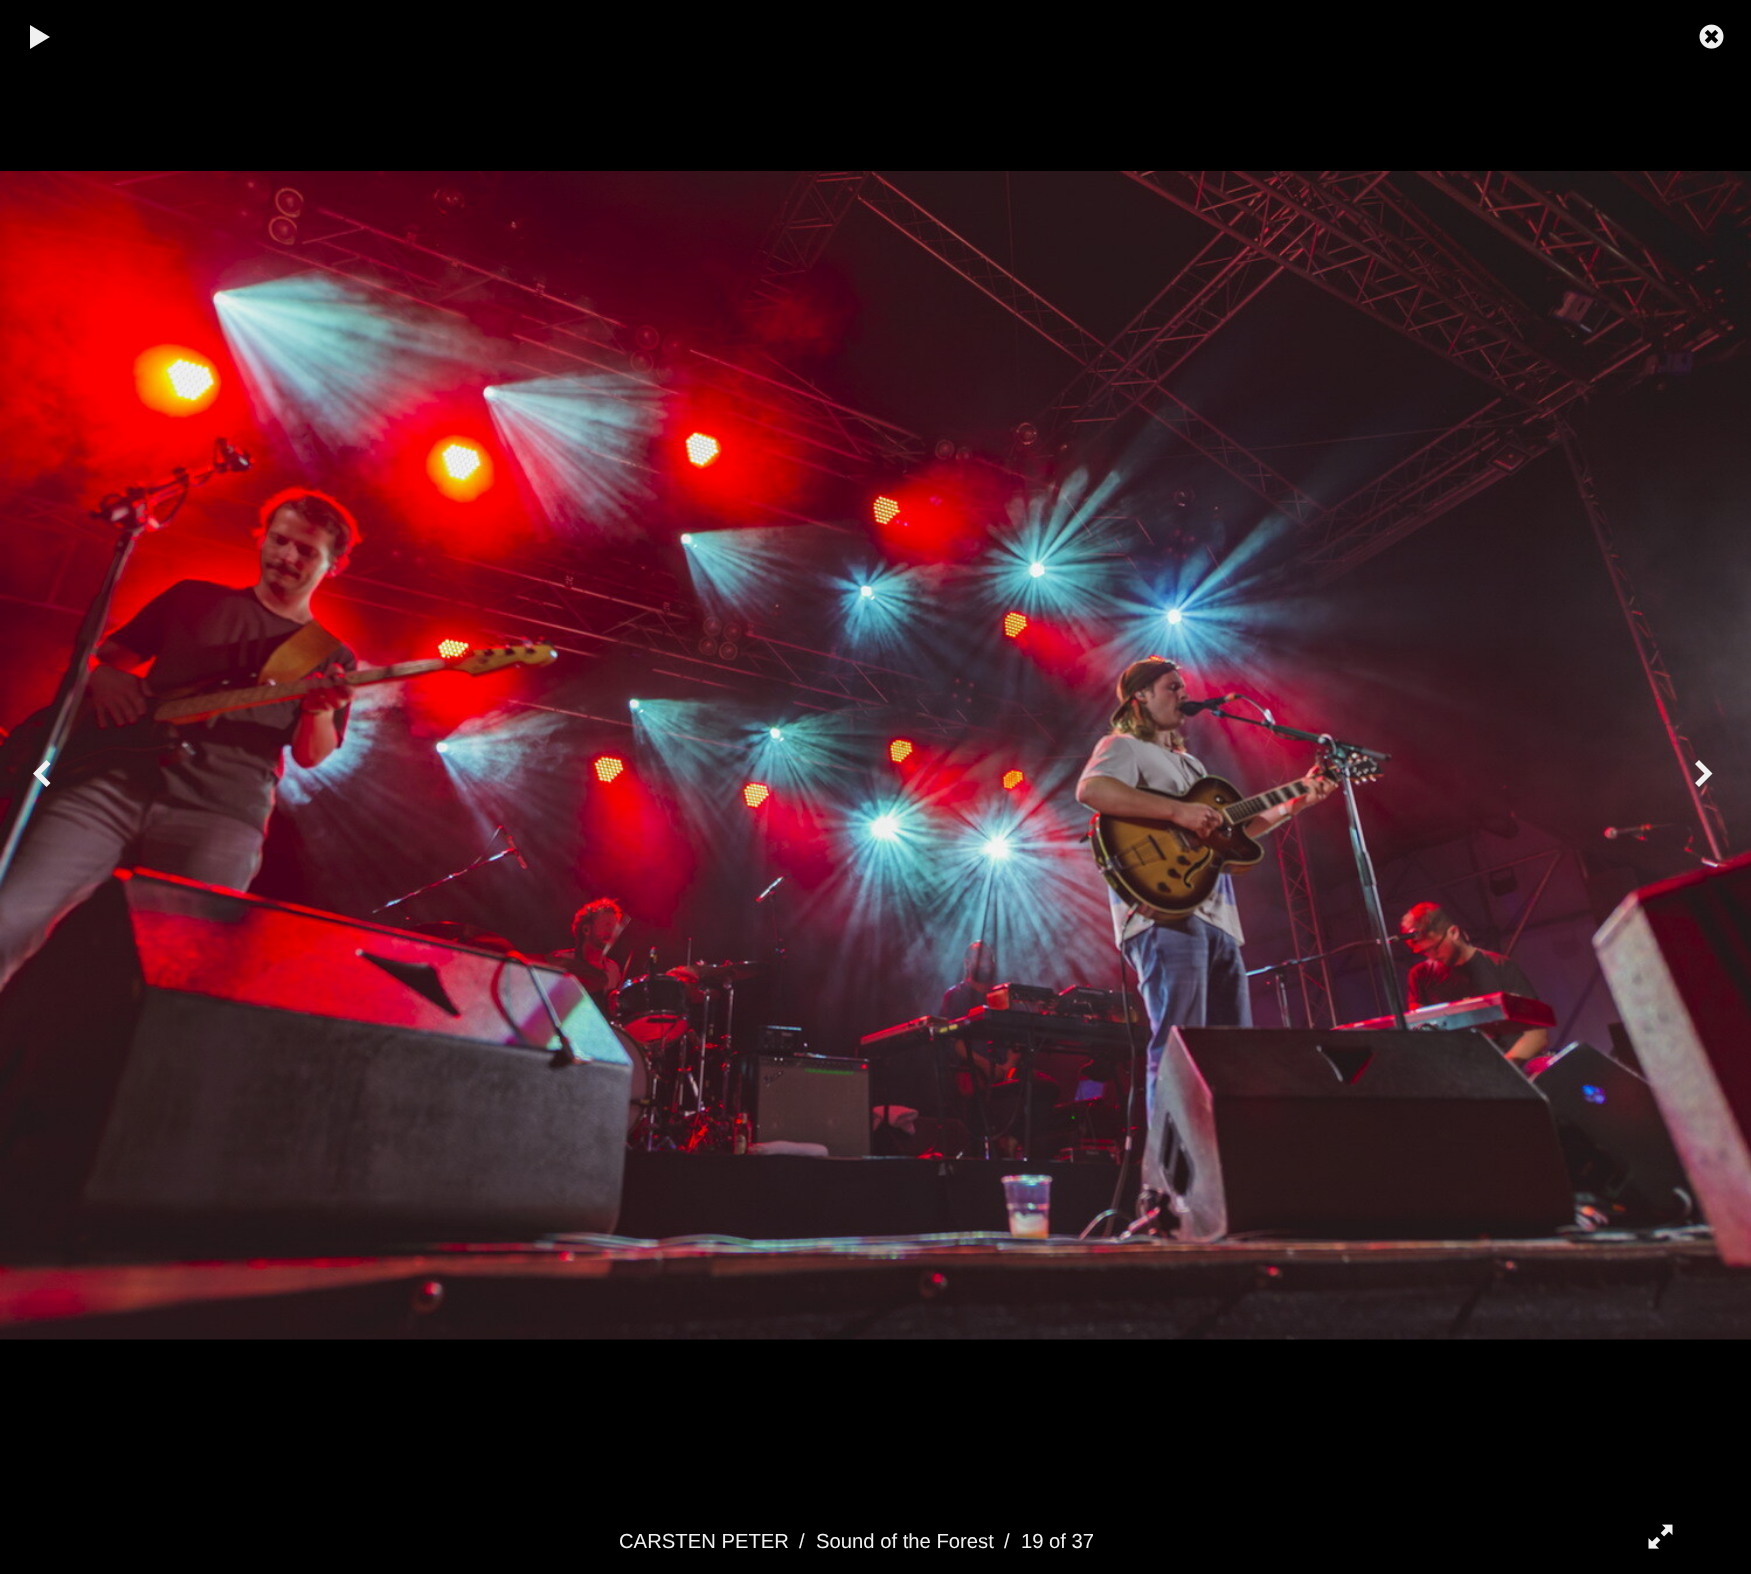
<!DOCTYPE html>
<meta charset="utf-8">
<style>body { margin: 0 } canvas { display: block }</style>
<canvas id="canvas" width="1751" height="1574"></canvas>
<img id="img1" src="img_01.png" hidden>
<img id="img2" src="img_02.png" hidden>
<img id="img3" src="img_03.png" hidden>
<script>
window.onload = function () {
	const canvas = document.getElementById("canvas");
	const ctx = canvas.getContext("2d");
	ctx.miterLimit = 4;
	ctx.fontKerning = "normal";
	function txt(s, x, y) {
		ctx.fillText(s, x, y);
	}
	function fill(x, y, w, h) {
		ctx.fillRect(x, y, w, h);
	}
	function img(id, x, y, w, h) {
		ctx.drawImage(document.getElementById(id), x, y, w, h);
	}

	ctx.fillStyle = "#000000";
	fill(0, 0, 1751, 1574);
	ctx.fillStyle = "#F0F0F0";
	ctx.beginPath();
	ctx.moveTo(30, 49);
	ctx.lineTo(30, 25);
	ctx.lineTo(50, 37);
	ctx.closePath();
	ctx.fill();
	img("img1", 1699, 24, 25, 25);
	img("img2", 0, 171, 1751, 1169);
	ctx.beginPath();
	ctx.moveTo(33, 773.5);
	ctx.lineTo(46.5, 760);
	ctx.lineTo(50.5, 764);
	ctx.lineTo(41, 773.5);
	ctx.lineTo(50.5, 783);
	ctx.lineTo(46.5, 787);
	ctx.closePath();
	ctx.fill();
	ctx.beginPath();
	ctx.moveTo(1695, 783);
	ctx.lineTo(1704.5, 773.5);
	ctx.lineTo(1695, 764);
	ctx.lineTo(1699, 760);
	ctx.lineTo(1712.5, 773.5);
	ctx.lineTo(1699, 787);
	ctx.closePath();
	ctx.fill();
	img("img3", 1648, 1524, 25, 25);
	ctx.font = "20.25px Liberation Sans";
	txt("CARSTEN PETER", 619, 1548);
	txt("/", 799, 1548);
	txt("Sound of the Forest", 816, 1548);
	txt("/  19 of 37", 1004, 1548);
};
</script>
